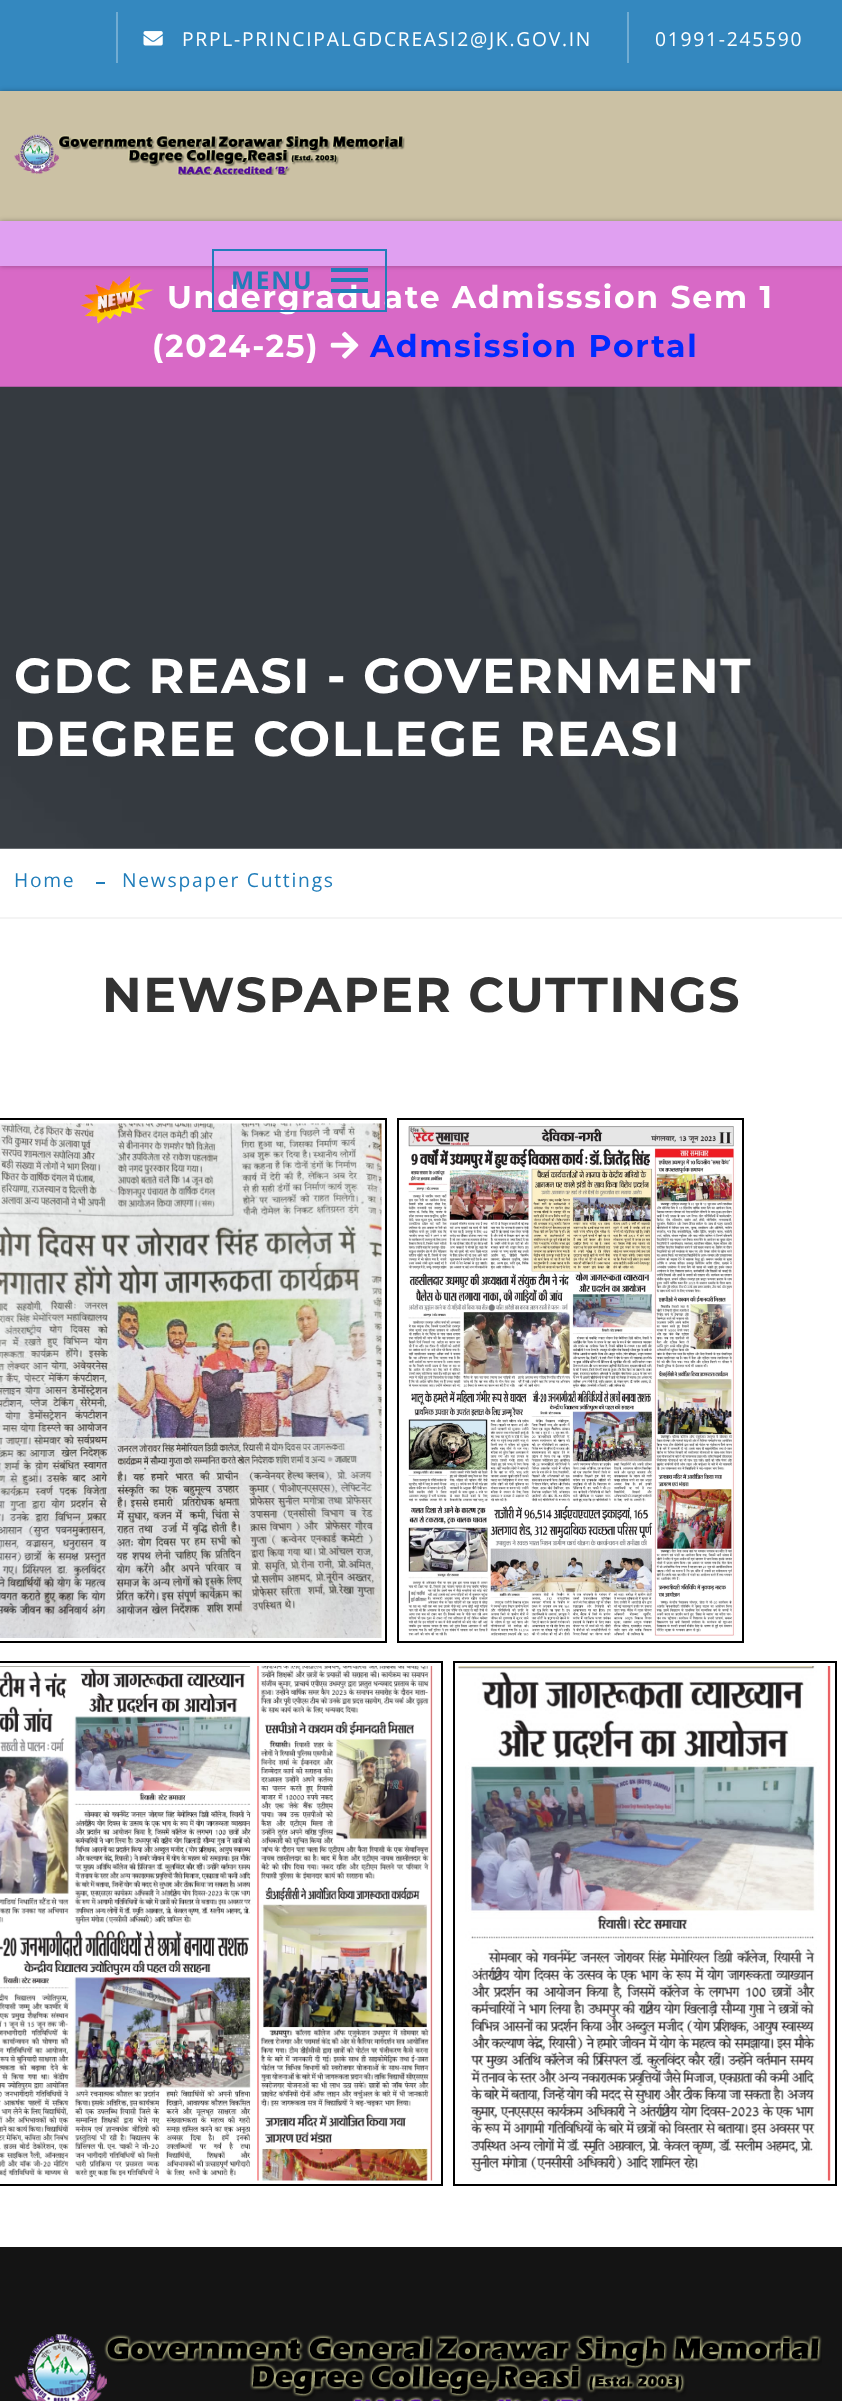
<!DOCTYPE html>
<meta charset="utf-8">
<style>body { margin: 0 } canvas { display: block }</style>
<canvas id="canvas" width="842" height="2401"></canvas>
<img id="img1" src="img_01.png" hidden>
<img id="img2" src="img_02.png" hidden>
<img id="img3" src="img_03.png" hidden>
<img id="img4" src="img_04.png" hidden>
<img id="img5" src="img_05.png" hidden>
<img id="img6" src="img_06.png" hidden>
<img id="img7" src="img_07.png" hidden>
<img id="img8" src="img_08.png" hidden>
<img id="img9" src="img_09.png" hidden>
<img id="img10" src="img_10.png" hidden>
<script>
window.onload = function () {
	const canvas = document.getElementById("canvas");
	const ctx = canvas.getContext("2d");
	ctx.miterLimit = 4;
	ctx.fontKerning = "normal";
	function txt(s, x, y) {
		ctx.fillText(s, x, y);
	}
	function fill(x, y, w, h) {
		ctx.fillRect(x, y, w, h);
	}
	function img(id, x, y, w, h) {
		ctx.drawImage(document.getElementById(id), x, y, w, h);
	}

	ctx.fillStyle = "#FFFFFF";
	fill(0, 0, 842, 2401);
	ctx.fillStyle = "#3488BF";
	fill(0, 0, 842, 91);
	ctx.fillStyle = "#71ACD2";
	fill(116, 12, 2, 51);
	img("img1", 143, 31, 20, 15);
	fill(627, 12, 2, 51);
	ctx.fillStyle = "rgba(0, 0, 0, 0.3)";
	ctx.filter = "blur(2.5px)";
	ctx.beginPath();
	ctx.rect(0, 91, 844, 130);
	ctx.fill();
	ctx.filter = "none";
	ctx.fillStyle = "#CBC1A4";
	fill(0, 91, 842, 130);
	img("img2", 14, 134, 391, 41);
	ctx.fillStyle = "#D869C6";
	fill(0, 266, 842, 121);
	ctx.fillStyle = "rgba(0, 0, 0, 0.3)";
	ctx.filter = "blur(2.5px)";
	ctx.beginPath();
	ctx.rect(0, 221, 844, 45);
	ctx.fill();
	ctx.filter = "none";
	ctx.fillStyle = "#E0A0F1";
	fill(0, 221, 842, 45);
	img("img3", 80, 276, 74, 48);
	img("img4", 330, 331, 29, 28);
	img("img5", 0, 386, 842, 463);
	ctx.fillStyle = "#F4F4F4";
	fill(0, 917, 842, 2);
	ctx.fillStyle = "#207DBA";
	fill(96, 882, 9, 2);
	ctx.strokeStyle = "#000000";
	ctx.lineWidth = 2;
	ctx.strokeRect(-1, 1119, 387, 523);
	img("img6", 0, 1123, 382, 515);
	ctx.strokeRect(398, 1119, 345, 523);
	img("img7", 408, 1126, 328, 510);
	ctx.strokeRect(-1, 1662, 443, 523);
	img("img8", 0, 1666, 433, 515);
	ctx.strokeRect(454, 1662, 382, 523);
	img("img9", 458, 1666, 373, 515);
	ctx.fillStyle = "#141414";
	fill(0, 2247, 842, 154);
	img("img10", 14, 2334, 808, 67);
	ctx.letterSpacing = "1.75px";
	ctx.font = "19.25px Open Sans";
	ctx.fillStyle = "#FFFFFF";
	txt("PRPL-PRINCIPALGDCREASI2@JK.GOV.IN", 182, 46);
	txt("01991-245590", 655, 46);
	ctx.font = "bold 31.5px Montserrat";
	txt("Undergraduate Admisssion Sem 1", 167, 308);
	ctx.strokeStyle = "#207DBA";
	ctx.strokeRect(213, 250, 173, 61);
	ctx.fillStyle = "#207DBA";
	fill(331, 289, 37, 4);
	fill(331, 278, 37, 4);
	fill(331, 268, 37, 4);
	ctx.font = "bold 24.5px Open Sans";
	txt("MENU", 231, 289);
	ctx.font = "bold 31.5px Montserrat";
	ctx.fillStyle = "#FFFFFF";
	txt("(2024-25)", 152, 357);
	ctx.fillStyle = "#002BFF";
	txt("Admsission Portal", 370, 357);
	ctx.font = "bold 49px Montserrat";
	ctx.fillStyle = "#FFFFFF";
	txt("GDC REASI - GOVERNMENT", 14, 693);
	txt("DEGREE COLLEGE REASI", 14, 756);
	ctx.font = "19.25px Open Sans";
	ctx.fillStyle = "#207DBA";
	txt("Home", 14, 887);
	txt("Newspaper Cuttings", 122, 887);
	ctx.font = "bold 49px Montserrat";
	ctx.fillStyle = "#333333";
	txt("NEWSPAPER CUTTINGS", 102, 1012);
};
</script>
